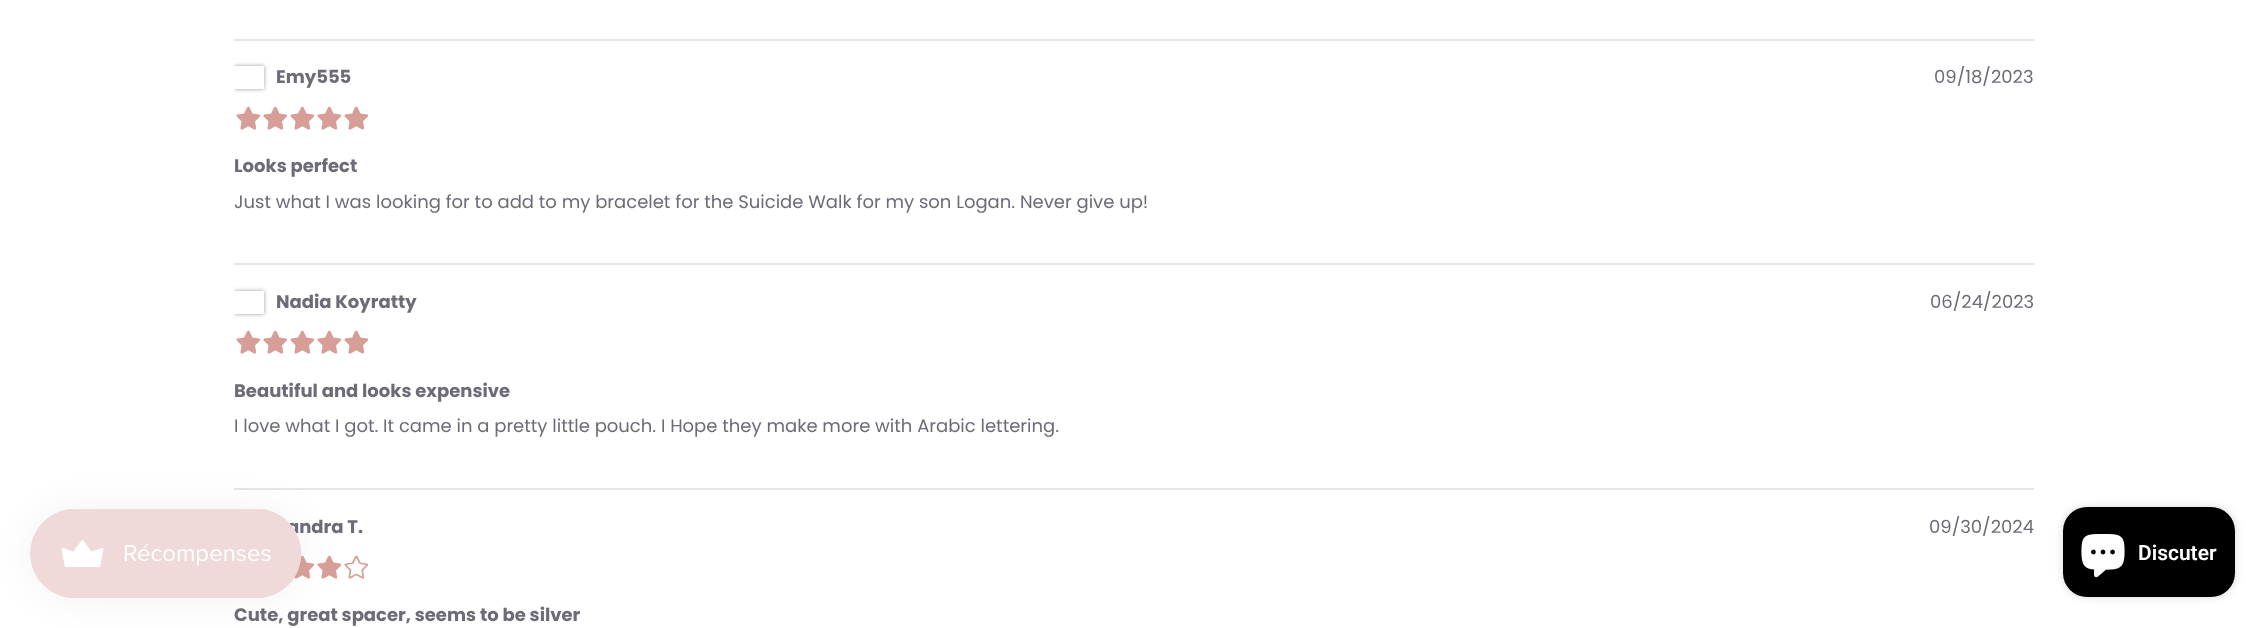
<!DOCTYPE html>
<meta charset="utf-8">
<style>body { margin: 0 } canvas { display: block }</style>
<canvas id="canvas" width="2268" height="628"></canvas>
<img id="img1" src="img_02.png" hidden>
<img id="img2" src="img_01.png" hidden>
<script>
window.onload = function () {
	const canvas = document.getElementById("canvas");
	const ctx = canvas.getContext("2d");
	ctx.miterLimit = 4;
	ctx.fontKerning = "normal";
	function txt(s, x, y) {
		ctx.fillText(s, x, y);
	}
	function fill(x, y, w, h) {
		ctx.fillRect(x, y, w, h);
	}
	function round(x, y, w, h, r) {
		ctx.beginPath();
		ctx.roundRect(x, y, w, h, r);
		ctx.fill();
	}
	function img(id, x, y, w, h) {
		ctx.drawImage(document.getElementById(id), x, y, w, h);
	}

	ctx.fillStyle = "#FFFFFF";
	fill(0, 0, 2268, 628);
	ctx.fillStyle = "#E6E6E6";
	fill(234, 488, 1800, 2);
	ctx.fillStyle = "rgba(0, 0, 0, 0.05)";
	ctx.filter = "blur(19px)";
	ctx.beginPath();
	ctx.roundRect(30, 509, 272, 90, 45);
	ctx.fill();
	ctx.filter = "none";
	ctx.fillStyle = "#E6E6E6";
	fill(234, 39, 1800, 2);
	ctx.save();
	ctx.beginPath();
	ctx.rect(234, 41, 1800, 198);
	ctx.clip();
	ctx.beginPath();
	ctx.moveTo(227, 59);
	ctx.lineTo(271, 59);
	ctx.lineTo(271, 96);
	ctx.lineTo(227, 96);
	ctx.closePath();
	ctx.moveTo(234, 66);
	ctx.lineTo(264, 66);
	ctx.lineTo(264, 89);
	ctx.lineTo(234, 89);
	ctx.closePath();
	ctx.clip("evenodd");
	ctx.fillStyle = "rgba(0, 0, 0, 0.4)";
	ctx.filter = "blur(2px)";
	ctx.beginPath();
	ctx.rect(234, 66, 30, 23);
	ctx.fill();
	ctx.filter = "none";
	ctx.restore();
	fill(234, 263, 1800, 2);
	ctx.save();
	ctx.beginPath();
	ctx.rect(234, 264, 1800, 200);
	ctx.clip();
	ctx.beginPath();
	ctx.moveTo(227, 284);
	ctx.lineTo(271, 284);
	ctx.lineTo(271, 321);
	ctx.lineTo(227, 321);
	ctx.closePath();
	ctx.moveTo(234, 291);
	ctx.lineTo(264, 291);
	ctx.lineTo(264, 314);
	ctx.lineTo(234, 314);
	ctx.closePath();
	ctx.clip("evenodd");
	ctx.fillStyle = "rgba(0, 0, 0, 0.4)";
	ctx.filter = "blur(2px)";
	ctx.beginPath();
	ctx.rect(234, 291, 30, 23);
	ctx.fill();
	ctx.filter = "none";
	ctx.restore();
	ctx.fillStyle = "rgba(0, 0, 0, 0.15)";
	ctx.filter = "blur(4px)";
	ctx.beginPath();
	ctx.roundRect(2063, 507, 172, 90, 24);
	ctx.fill();
	ctx.filter = "none";
	ctx.fillStyle = "#000000";
	round(2063, 507, 172, 90, 24);
	img("img1", 2081, 534, 44, 44);
	ctx.font = "bold 18px Poppins";
	ctx.fillStyle = "#6B6C77";
	txt("Emy555", 276, 83);
	ctx.font = "18px Poppins";
	txt("09/18/2023", 1934, 83);
	ctx.font = "26px 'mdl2'";
	ctx.fillStyle = "#D69E96";
	txt("£", 235, 131);
	txt("£", 262, 131);
	txt("£", 289, 131);
	txt("£", 316, 131);
	txt("£", 343, 131);
	ctx.font = "bold 18px Poppins";
	ctx.fillStyle = "#6B6C77";
	txt("Looks perfect", 234, 172);
	ctx.font = "18px Poppins";
	txt("Just what I was looking for to add to my bracelet for the Suicide Walk for my son Logan. Never give up!", 234, 208);
	ctx.font = "bold 18px Poppins";
	txt("Nadia Koyratty", 276, 308);
	ctx.font = "18px Poppins";
	txt("06/24/2023", 1930, 308);
	ctx.font = "26px 'mdl2'";
	ctx.fillStyle = "#D69E96";
	txt("£", 235, 355);
	txt("£", 262, 355);
	txt("£", 289, 355);
	txt("£", 316, 355);
	txt("£", 343, 355);
	ctx.font = "bold 18px Poppins";
	ctx.fillStyle = "#6B6C77";
	txt("Beautiful and looks expensive", 234, 397);
	ctx.font = "18px Poppins";
	txt("I love what I got. It came in a pretty little pouch. I Hope they make more with Arabic lettering.", 234, 432);
	ctx.font = "bold 18px Poppins";
	txt("andra T.", 287, 533);
	ctx.font = "18px Poppins";
	txt("09/30/2024", 1929, 533);
	ctx.font = "26px 'mdl2'";
	ctx.fillStyle = "#D69E96";
	txt("£", 289, 580);
	img("img2", 30, 509, 272, 89);
	txt("£", 316, 580);
	txt("¤", 343, 580);
	ctx.font = "bold 18px Poppins";
	ctx.fillStyle = "#6B6C77";
	txt("Cute, great spacer, seems to be silver", 234, 621);
	ctx.font = "600 21px Roboto";
	ctx.fillStyle = "#FFFFFF";
	txt("Discuter", 2138, 560);
};
</script>
